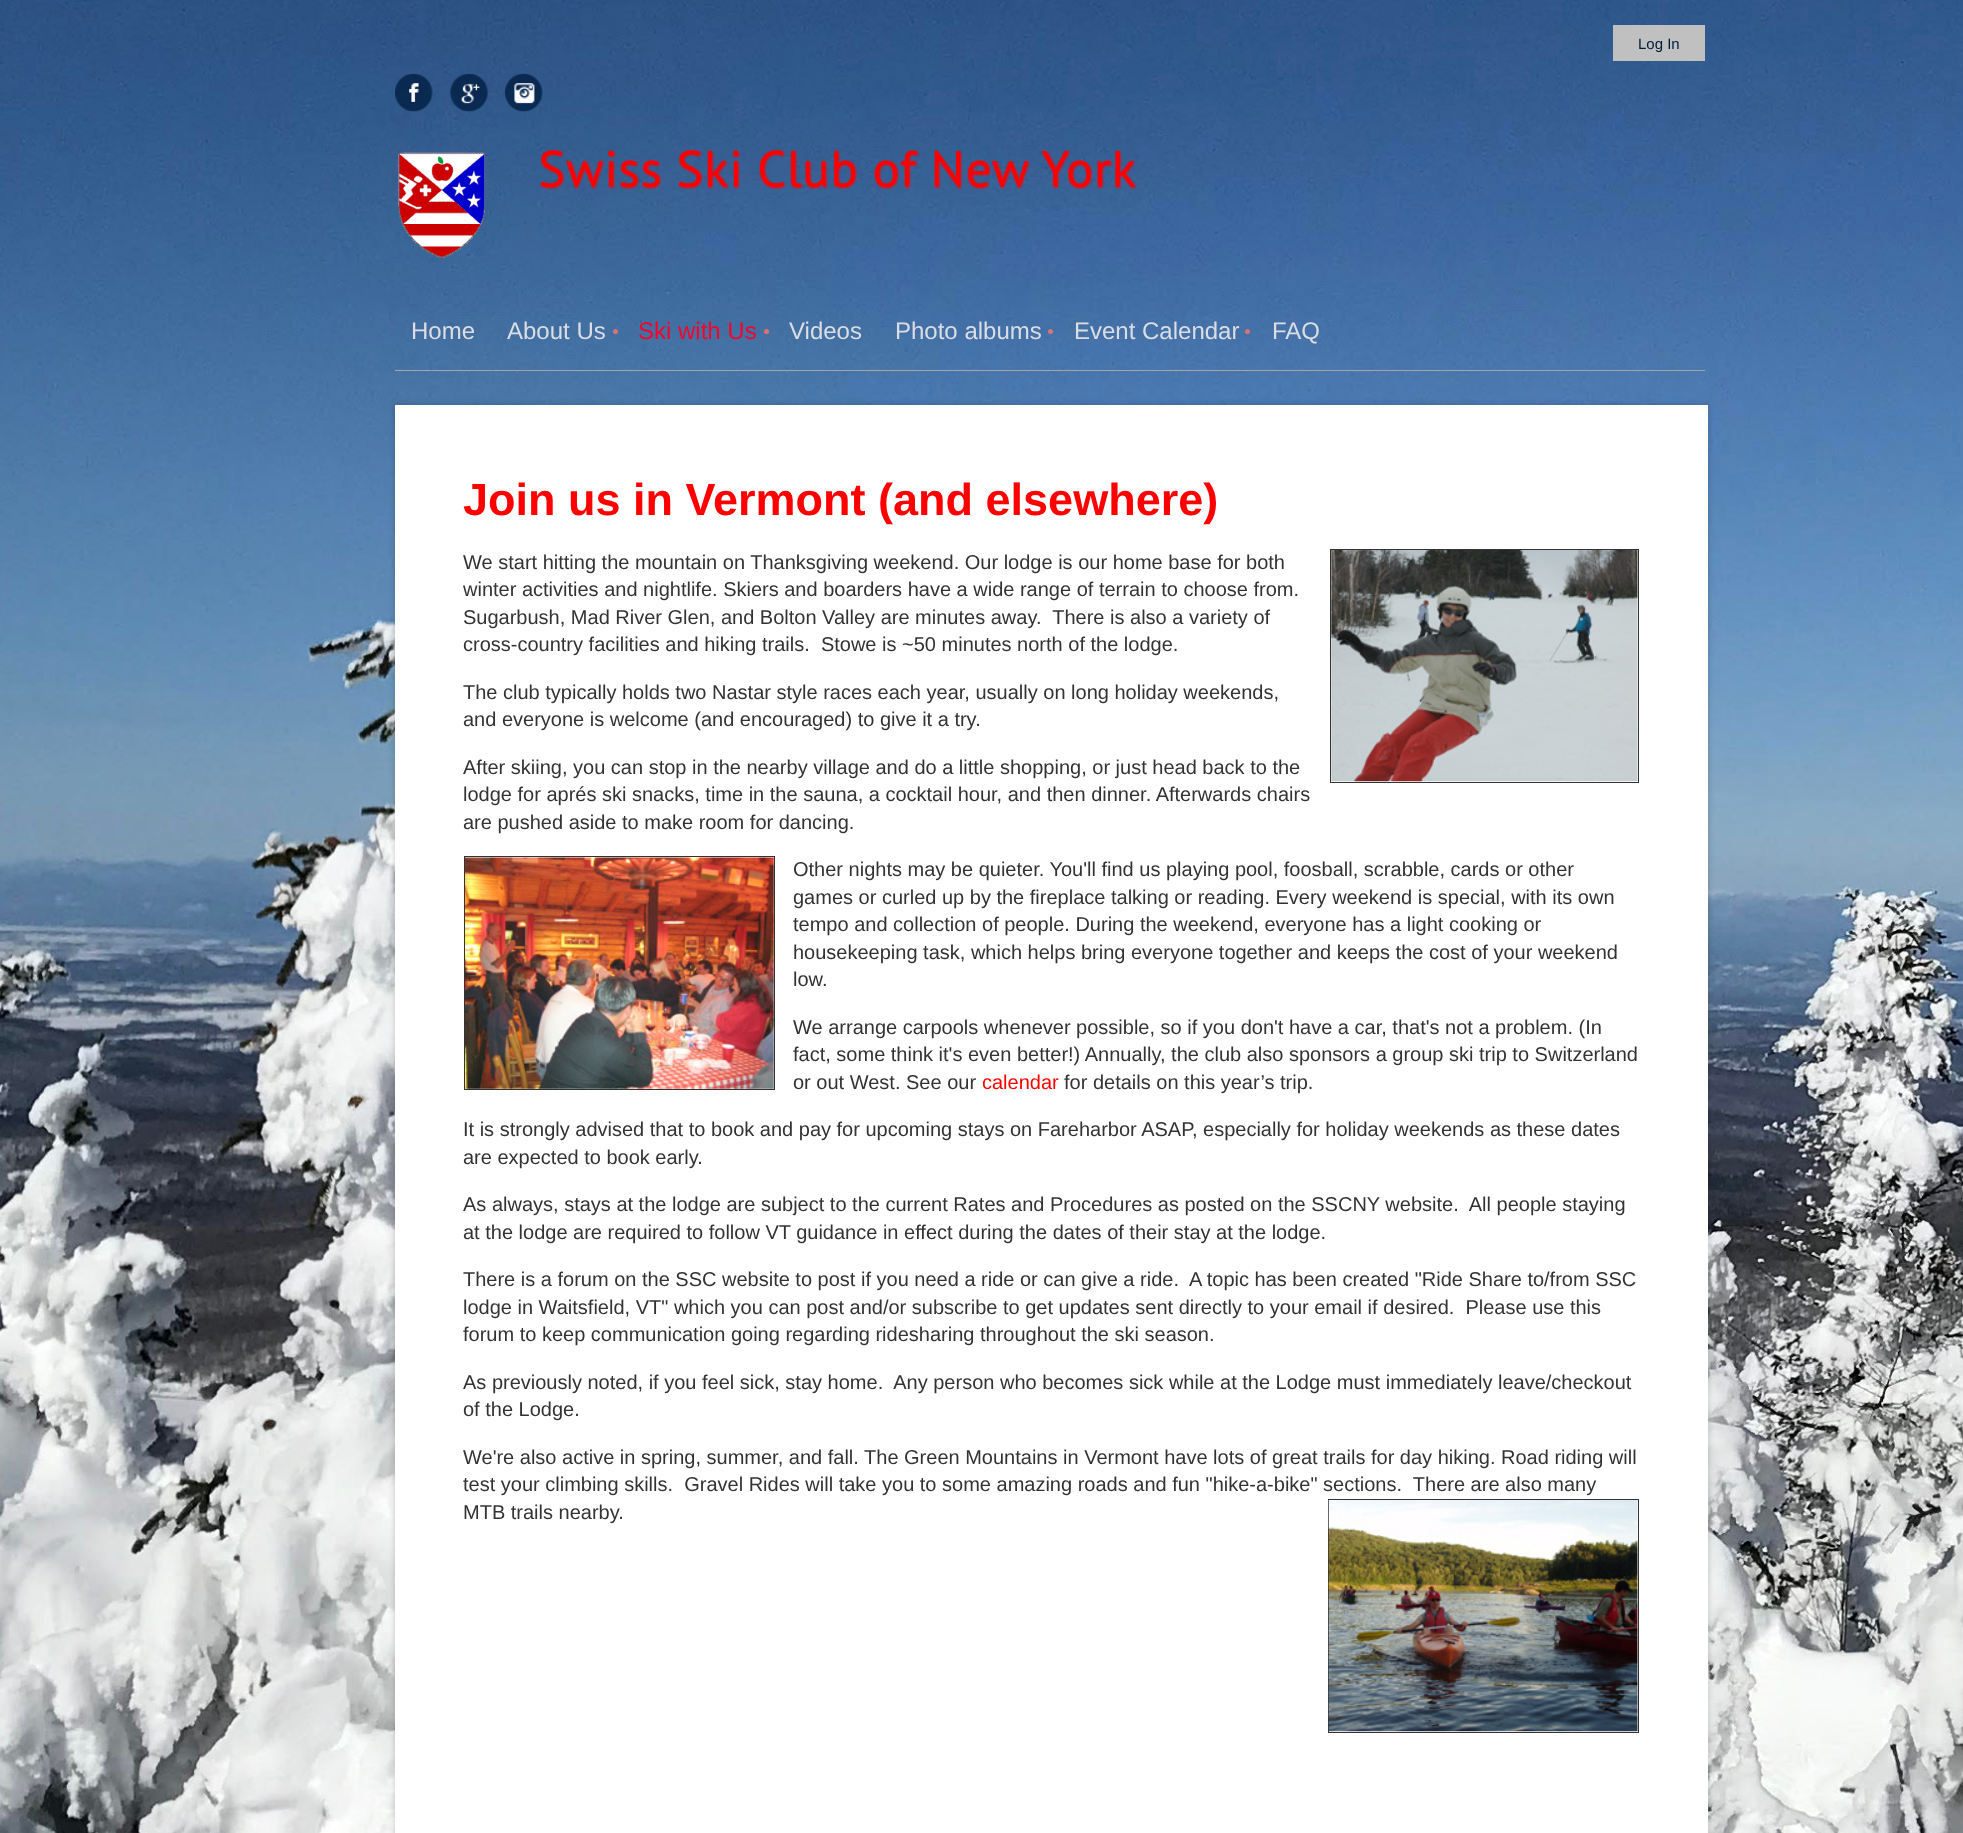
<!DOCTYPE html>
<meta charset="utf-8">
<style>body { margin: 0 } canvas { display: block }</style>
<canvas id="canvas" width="1963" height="1833"></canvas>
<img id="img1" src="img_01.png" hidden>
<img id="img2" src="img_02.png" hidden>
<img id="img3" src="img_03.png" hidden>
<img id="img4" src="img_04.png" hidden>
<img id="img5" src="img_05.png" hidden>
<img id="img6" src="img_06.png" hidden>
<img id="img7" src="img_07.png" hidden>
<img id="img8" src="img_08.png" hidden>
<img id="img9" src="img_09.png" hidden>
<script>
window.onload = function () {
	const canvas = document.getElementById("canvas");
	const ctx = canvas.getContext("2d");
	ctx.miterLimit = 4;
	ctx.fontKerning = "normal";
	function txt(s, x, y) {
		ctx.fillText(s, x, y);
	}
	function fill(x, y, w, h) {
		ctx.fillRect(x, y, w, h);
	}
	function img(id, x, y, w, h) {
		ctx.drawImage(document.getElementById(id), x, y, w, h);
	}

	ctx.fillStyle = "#FFFFFF";
	fill(0, 0, 1963, 1833);
	img("img1", 0, 0, 1963, 1833);
	ctx.fillStyle = "#C0C0C0";
	fill(1613, 25, 92, 36);
	img("img2", 395, 74, 38, 38);
	img("img3", 450, 74, 38, 38);
	img("img4", 505, 73, 38, 39);
	img("img5", 398, 152, 87, 106);
	img("img6", 539, 149, 599, 41);
	ctx.fillStyle = "#A5A5A4";
	fill(395, 370, 1310, 1);
	ctx.fillStyle = "#DB7373";
	ctx.beginPath();
	ctx.arc(615.5, 331.5, 2.5, 0, Math.PI * 2);
	ctx.fill();
	ctx.beginPath();
	ctx.arc(766.5, 331.5, 2.5, 0, Math.PI * 2);
	ctx.fill();
	ctx.beginPath();
	ctx.arc(1050.5, 331.5, 2.5, 0, Math.PI * 2);
	ctx.fill();
	ctx.beginPath();
	ctx.arc(1247.5, 331.5, 2.5, 0, Math.PI * 2);
	ctx.fill();
	ctx.fillStyle = "rgba(0, 0, 0, 0.2)";
	ctx.filter = "blur(3px)";
	ctx.beginPath();
	ctx.rect(395, 405, 1313, 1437);
	ctx.fill();
	ctx.filter = "none";
	ctx.fillStyle = "#FFFFFF";
	fill(395, 405, 1313, 1428);
	ctx.strokeStyle = "#333333";
	ctx.strokeRect(1330.5, 549.5, 308, 233);
	img("img7", 1331, 550, 307, 232);
	ctx.strokeRect(464.5, 856.5, 310, 233);
	img("img8", 465, 857, 309, 232);
	ctx.strokeRect(1328.5, 1499.5, 310, 233);
	img("img9", 1328, 1500, 310, 232);
	ctx.font = "15px Liberation Sans";
	ctx.fillStyle = "#001B3D";
	txt("Log In", 1638, 49);
	ctx.font = "24px Liberation Sans";
	ctx.fillStyle = "#DADEE4";
	txt("Home", 411, 339);
	txt("About Us", 507, 339);
	ctx.fillStyle = "#FA022B";
	txt("Ski with Us", 638, 339);
	ctx.fillStyle = "#DADEE4";
	txt("Videos", 789, 339);
	txt("Photo albums", 895, 339);
	txt("Event Calendar", 1074, 339);
	txt("FAQ", 1272, 339);
	ctx.font = "bold 45px Liberation Sans";
	ctx.fillStyle = "#FF0000";
	txt("Join us in Vermont (and elsewhere)", 463, 515);
	ctx.font = "20px Liberation Sans";
	ctx.fillStyle = "#333333";
	txt("We start hitting the mountain on Thanksgiving weekend. Our lodge is our home base for both", 463, 569);
	txt("winter activities and nightlife. Skiers and boarders have a wide range of terrain to choose from.", 463, 596);
	txt("Sugarbush, Mad River Glen, and Bolton Valley are minutes away.  There is also a variety of", 463, 624);
	txt("cross-country facilities and hiking trails.  Stowe is ~50 minutes north of the lodge.", 463, 651);
	txt("The club typically holds two Nastar style races each year, usually on long holiday weekends,", 463, 699);
	txt("and everyone is welcome (and encouraged) to give it a try.", 463, 726);
	txt("After skiing, you can stop in the nearby village and do a little shopping, or just head back to the", 463, 774);
	txt("lodge for aprés ski snacks, time in the sauna, a cocktail hour, and then dinner. Afterwards chairs", 463, 801);
	txt("are pushed aside to make room for dancing.", 463, 829);
	txt("Other nights may be quieter. You'll find us playing pool, foosball, scrabble, cards or other", 793, 876);
	txt("games or curled up by the fireplace talking or reading. Every weekend is special, with its own", 793, 904);
	txt("tempo and collection of people. During the weekend, everyone has a light cooking or", 793, 931);
	txt("housekeeping task, which helps bring everyone together and keeps the cost of your weekend", 793, 959);
	txt("low.", 793, 986);
	txt("We arrange carpools whenever possible, so if you don't have a car, that's not a problem. (In", 793, 1034);
	txt("fact, some think it's even better!) Annually, the club also sponsors a group ski trip to Switzerland", 793, 1061);
	txt("or out West. See our", 793, 1089);
	ctx.fillStyle = "#FF0000";
	txt("calendar", 982, 1089);
	ctx.fillStyle = "#333333";
	txt("for details on this year’s trip.", 1064, 1089);
	txt("It is strongly advised that to book and pay for upcoming stays on Fareharbor ASAP, especially for holiday weekends as these dates", 463, 1136);
	txt("are expected to book early.", 463, 1164);
	txt("As always, stays at the lodge are subject to the current Rates and Procedures as posted on the SSCNY website.  All people staying", 463, 1211);
	txt("at the lodge are required to follow VT guidance in effect during the dates of their stay at the lodge.", 463, 1239);
	txt("There is a forum on the SSC website to post if you need a ride or can give a ride.  A topic has been created \"Ride Share to/from SSC", 463, 1286);
	txt("lodge in Waitsfield, VT\" which you can post and/or subscribe to get updates sent directly to your email if desired.  Please use this", 463, 1314);
	txt("forum to keep communication going regarding ridesharing throughout the ski season.", 463, 1341);
	txt("As previously noted, if you feel sick, stay home.  Any person who becomes sick while at the Lodge must immediately leave/checkout", 463, 1389);
	txt("of the Lodge.", 463, 1416);
	txt("We're also active in spring, summer, and fall. The Green Mountains in Vermont have lots of great trails for day hiking. Road riding will", 463, 1464);
	txt("test your climbing skills.  Gravel Rides will take you to some amazing roads and fun \"hike-a-bike\" sections.  There are also many", 463, 1491);
	txt("MTB trails nearby.", 463, 1519);
};
</script>
